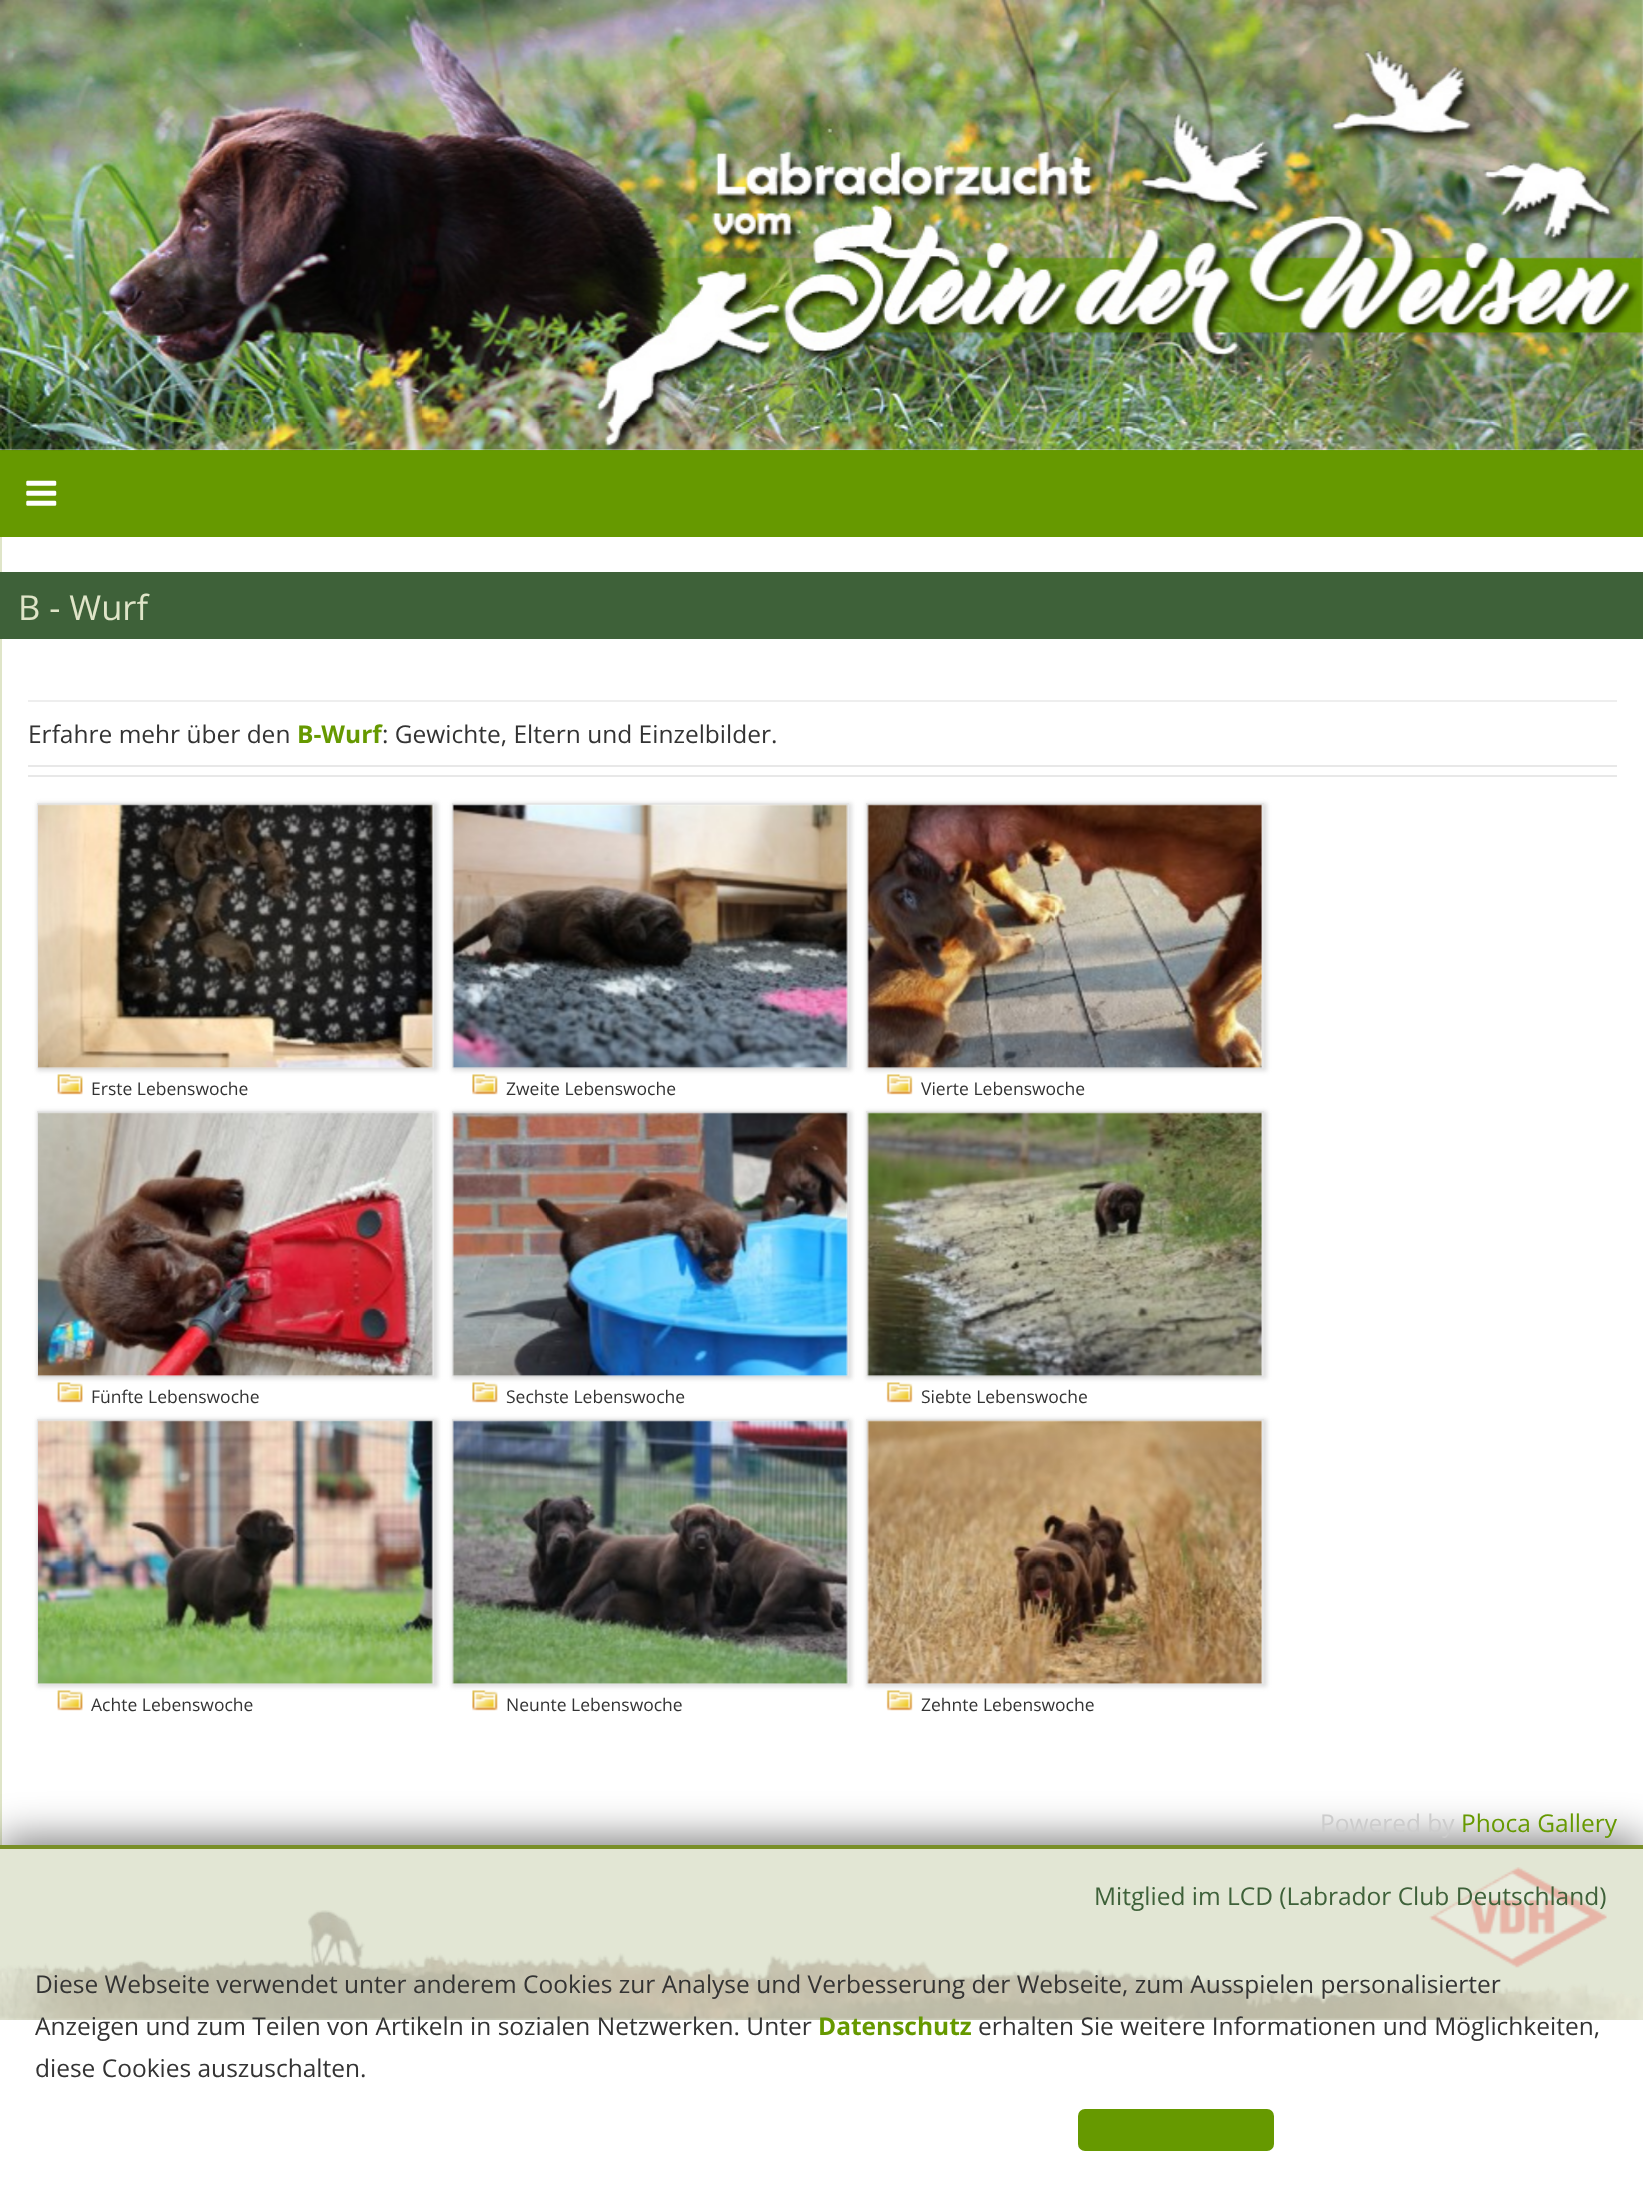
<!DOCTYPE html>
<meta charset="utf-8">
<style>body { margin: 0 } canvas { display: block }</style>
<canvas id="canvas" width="1643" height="2185"></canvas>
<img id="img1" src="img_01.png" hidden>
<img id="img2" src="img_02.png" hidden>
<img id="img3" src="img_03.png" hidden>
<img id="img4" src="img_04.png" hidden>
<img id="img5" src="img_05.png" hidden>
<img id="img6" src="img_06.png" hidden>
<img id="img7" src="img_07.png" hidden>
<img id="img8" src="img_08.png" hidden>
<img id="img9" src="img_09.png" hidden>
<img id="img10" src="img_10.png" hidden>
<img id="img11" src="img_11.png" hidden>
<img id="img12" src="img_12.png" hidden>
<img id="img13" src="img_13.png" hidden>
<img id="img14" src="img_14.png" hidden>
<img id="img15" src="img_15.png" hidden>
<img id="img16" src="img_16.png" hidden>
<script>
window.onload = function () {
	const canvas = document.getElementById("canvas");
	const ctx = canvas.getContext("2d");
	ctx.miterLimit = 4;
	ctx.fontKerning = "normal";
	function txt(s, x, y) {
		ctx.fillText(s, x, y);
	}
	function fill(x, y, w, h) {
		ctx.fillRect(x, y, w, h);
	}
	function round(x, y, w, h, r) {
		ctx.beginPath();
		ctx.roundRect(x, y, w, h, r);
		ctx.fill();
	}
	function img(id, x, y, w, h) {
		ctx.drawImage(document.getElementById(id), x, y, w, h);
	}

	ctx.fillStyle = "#FFFFFF";
	fill(0, 0, 1643, 2185);
	ctx.fillStyle = "#669900";
	fill(0, 450, 1643, 87);
	img("img1", 0, 0, 1643, 451);
	img("img2", 26, 480, 31, 26);
	ctx.fillStyle = "#DFE5C8";
	fill(0, 537, 2, 1308);
	ctx.fillStyle = "#EEEEEE";
	fill(28, 700, 1589, 2);
	ctx.fillStyle = "#3E6139";
	fill(0, 572, 1643, 67);
	ctx.fillStyle = "#E8E8E8";
	fill(28, 765, 1589, 2);
	fill(28, 775, 1589, 2);
	ctx.fillStyle = "rgba(190, 190, 190, 0.5)";
	ctx.filter = "blur(2px)";
	ctx.beginPath();
	ctx.rect(37, 803, 401, 268);
	ctx.fill();
	ctx.filter = "none";
	ctx.strokeStyle = "#E5E5E5";
	ctx.lineWidth = 2;
	ctx.strokeRect(38, 804, 395, 263);
	img("img3", 38, 804, 395, 265);
	img("img4", 57, 1074, 26, 21);
	ctx.filter = "blur(2px)";
	ctx.beginPath();
	ctx.rect(452, 803, 400, 268);
	ctx.fill();
	ctx.filter = "none";
	ctx.fillStyle = "#FFFFFF";
	ctx.beginPath();
	ctx.rect(453, 804, 395, 263);
	ctx.fill();
	ctx.stroke();
	img("img5", 452, 804, 396, 265);
	img("img6", 472, 1074, 26, 21);
	ctx.fillStyle = "rgba(190, 190, 190, 0.5)";
	ctx.filter = "blur(2px)";
	ctx.beginPath();
	ctx.rect(866, 803, 401, 268);
	ctx.fill();
	ctx.filter = "none";
	ctx.fillStyle = "#FFFFFF";
	ctx.beginPath();
	ctx.rect(867, 804, 396, 263);
	ctx.fill();
	ctx.stroke();
	img("img7", 867, 804, 395, 265);
	img("img8", 886, 1074, 27, 21);
	ctx.fillStyle = "rgba(190, 190, 190, 0.5)";
	ctx.filter = "blur(2px)";
	ctx.beginPath();
	ctx.rect(37, 1111, 401, 268);
	ctx.fill();
	ctx.filter = "none";
	ctx.strokeRect(38, 1112, 395, 263);
	img("img9", 38, 1112, 395, 265);
	img("img4", 57, 1382, 26, 21);
	ctx.filter = "blur(2px)";
	ctx.beginPath();
	ctx.rect(452, 1111, 400, 268);
	ctx.fill();
	ctx.filter = "none";
	ctx.fillStyle = "#FFFFFF";
	ctx.beginPath();
	ctx.rect(453, 1112, 395, 263);
	ctx.fill();
	ctx.stroke();
	img("img10", 452, 1112, 396, 265);
	img("img6", 472, 1382, 26, 21);
	ctx.fillStyle = "rgba(190, 190, 190, 0.5)";
	ctx.filter = "blur(2px)";
	ctx.beginPath();
	ctx.rect(866, 1111, 401, 268);
	ctx.fill();
	ctx.filter = "none";
	ctx.fillStyle = "#FFFFFF";
	ctx.beginPath();
	ctx.rect(867, 1112, 396, 263);
	ctx.fill();
	ctx.stroke();
	img("img11", 867, 1112, 395, 265);
	img("img8", 886, 1382, 27, 21);
	ctx.fillStyle = "rgba(190, 190, 190, 0.5)";
	ctx.filter = "blur(2px)";
	ctx.beginPath();
	ctx.rect(37, 1419, 401, 268);
	ctx.fill();
	ctx.filter = "none";
	ctx.strokeRect(38, 1420, 395, 263);
	img("img12", 38, 1420, 395, 264);
	img("img4", 57, 1690, 26, 21);
	ctx.filter = "blur(2px)";
	ctx.beginPath();
	ctx.rect(452, 1419, 400, 268);
	ctx.fill();
	ctx.filter = "none";
	ctx.fillStyle = "#FFFFFF";
	ctx.beginPath();
	ctx.rect(453, 1420, 395, 263);
	ctx.fill();
	ctx.stroke();
	img("img13", 452, 1420, 396, 264);
	img("img6", 472, 1690, 26, 21);
	ctx.fillStyle = "rgba(190, 190, 190, 0.5)";
	ctx.filter = "blur(2px)";
	ctx.beginPath();
	ctx.rect(866, 1419, 401, 268);
	ctx.fill();
	ctx.filter = "none";
	ctx.fillStyle = "#FFFFFF";
	ctx.beginPath();
	ctx.rect(867, 1420, 396, 263);
	ctx.fill();
	ctx.stroke();
	img("img14", 867, 1420, 395, 264);
	img("img8", 886, 1690, 27, 21);
	ctx.save();
	ctx.beginPath();
	ctx.rect(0, 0, 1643, 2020);
	ctx.clip();
	ctx.fillStyle = "rgba(0, 0, 0, 0.5)";
	ctx.filter = "blur(20px)";
	ctx.beginPath();
	ctx.rect(0, 1838, 1643, 175);
	ctx.fill();
	ctx.filter = "none";
	ctx.restore();
	ctx.fillStyle = "#E2E6D4";
	fill(0, 1849, 1643, 171);
	img("img15", 0, 1910, 1643, 110);
	ctx.fillStyle = "#798F27";
	fill(0, 1845, 1643, 4);
	img("img16", 1429, 1867, 178, 101);
	ctx.fillStyle = "#669900";
	round(1078, 2109, 196, 42, 7);
	ctx.font = "34.5px Open Sans";
	ctx.fillStyle = "#DFE5C8";
	txt("B - Wurf", 18, 620);
	ctx.font = "24.5px Open Sans";
	ctx.fillStyle = "#333333";
	txt("Erfahre mehr über den", 28, 743);
	ctx.font = "bold 24.5px Open Sans";
	ctx.fillStyle = "#669900";
	txt("B-Wurf", 297, 743);
	ctx.font = "24.5px Open Sans";
	ctx.fillStyle = "#333333";
	txt(": Gewichte, Eltern und Einzelbilder.", 382, 743);
	ctx.font = "17.5px Open Sans";
	txt("Erste Lebenswoche", 91, 1095);
	txt("Zweite Lebenswoche", 506, 1095);
	txt("Vierte Lebenswoche", 921, 1095);
	txt("Fünfte Lebenswoche", 91, 1403);
	txt("Sechste Lebenswoche", 506, 1403);
	txt("Siebte Lebenswoche", 921, 1403);
	txt("Achte Lebenswoche", 91, 1711);
	txt("Neunte Lebenswoche", 506, 1711);
	txt("Zehnte Lebenswoche", 921, 1711);
	ctx.font = "24.5px Open Sans";
	ctx.fillStyle = "#CCCCCC";
	txt("Powered by", 1320, 1832);
	ctx.fillStyle = "#669900";
	txt("Phoca Gallery", 1461, 1832);
	ctx.fillStyle = "#3E6139";
	txt("Mitglied im LCD (Labrador Club Deutschland)", 1094, 1905);
	ctx.fillStyle = "#333333";
	txt("Diese Webseite verwendet unter anderem Cookies zur Analyse und Verbesserung der Webseite, zum Ausspielen personalisierter", 35, 1993);
	txt("Anzeigen und zum Teilen von Artikeln in sozialen Netzwerken. Unter", 35, 2035);
	ctx.font = "bold 24.5px Open Sans";
	ctx.fillStyle = "#669900";
	txt("Datenschutz", 818, 2035);
	ctx.font = "24.5px Open Sans";
	ctx.fillStyle = "#333333";
	txt("erhalten Sie weitere Informationen und Möglichkeiten,", 978, 2035);
	txt("diese Cookies auszuschalten.", 35, 2077);
};
</script>
